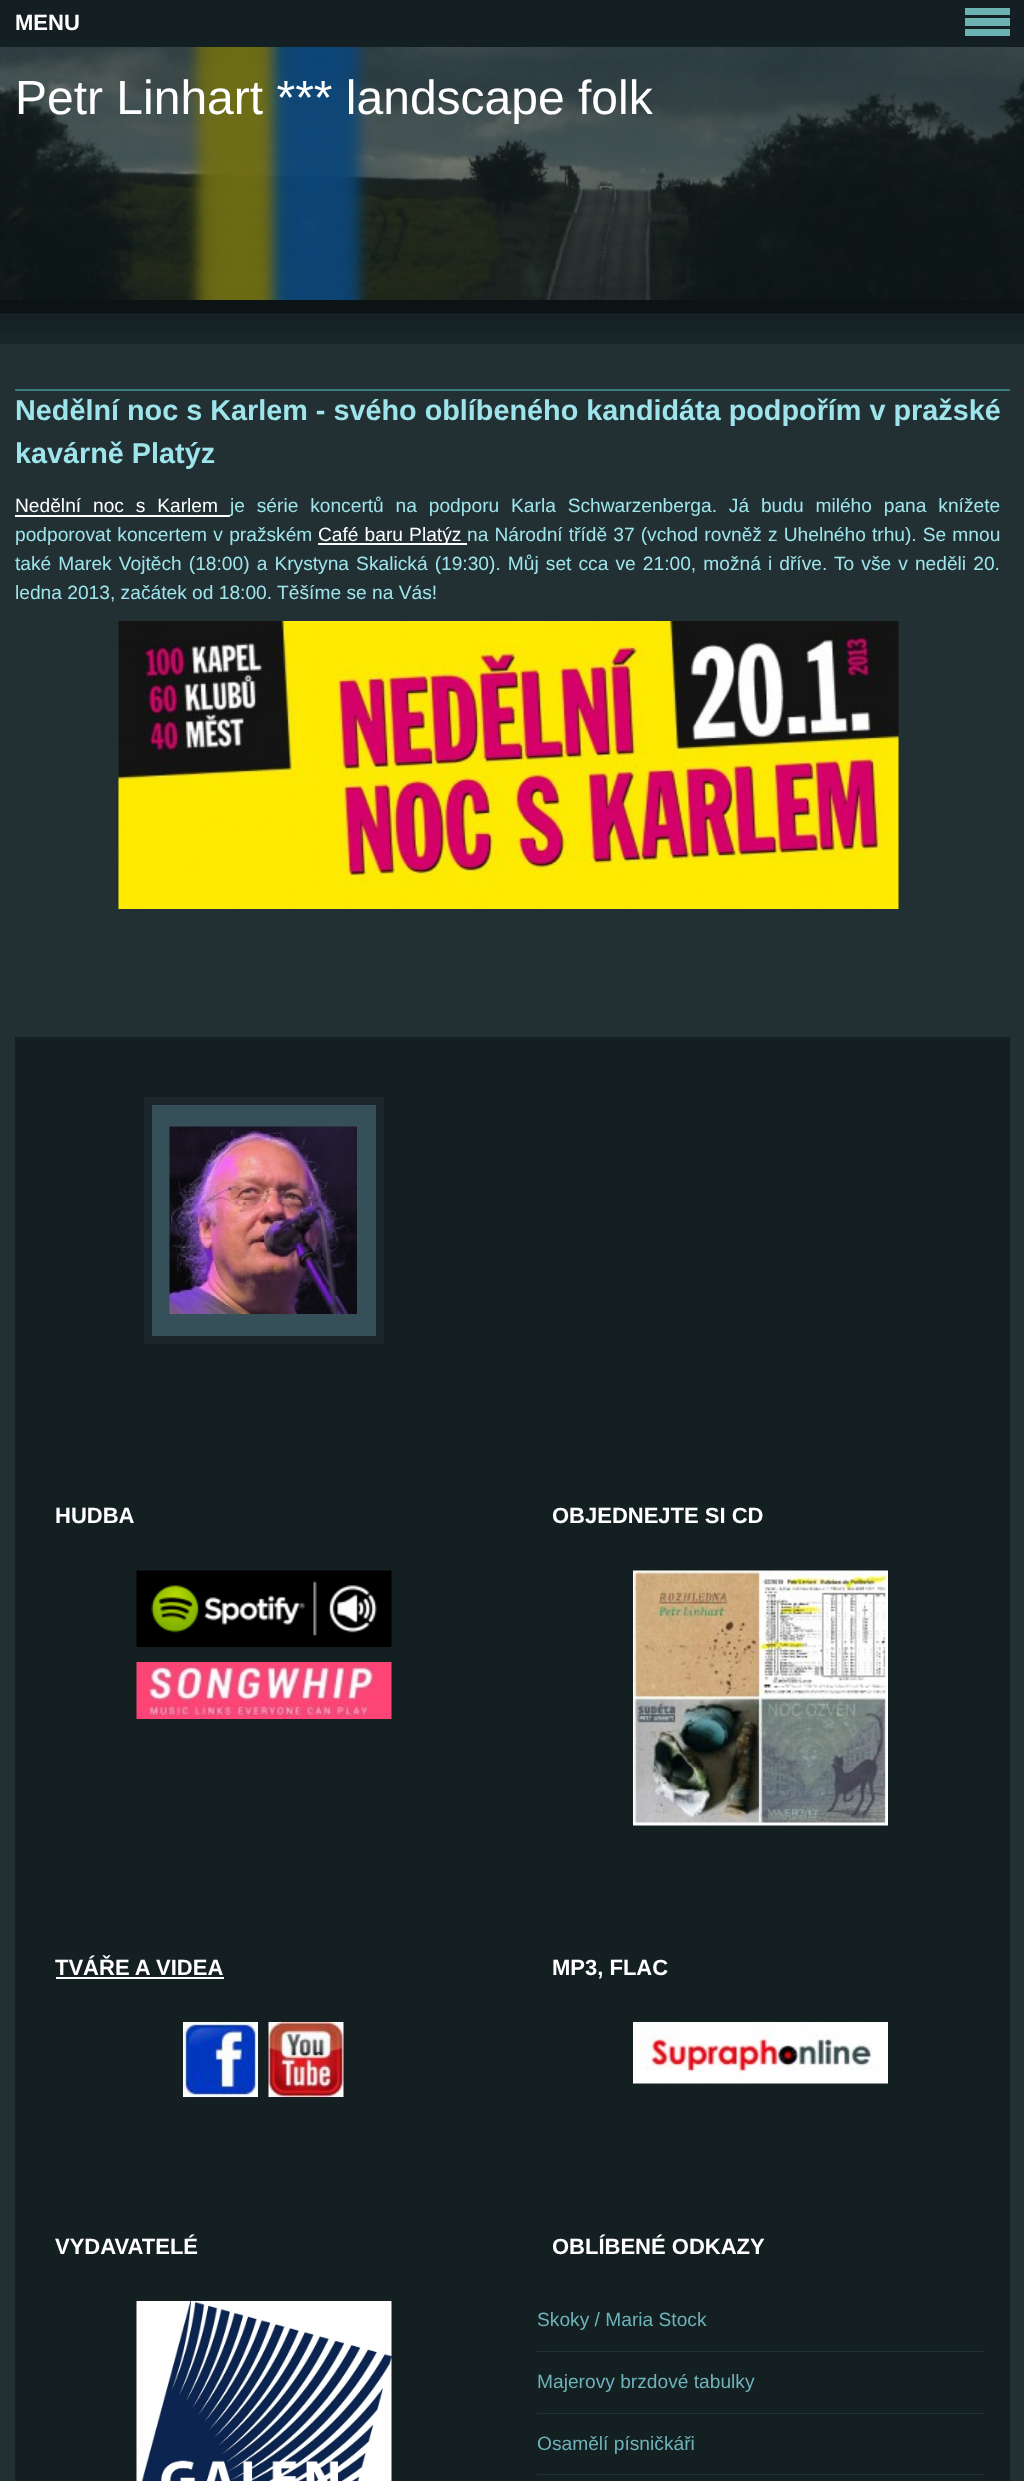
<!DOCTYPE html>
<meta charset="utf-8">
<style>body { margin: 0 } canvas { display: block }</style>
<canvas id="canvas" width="1024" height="2481"></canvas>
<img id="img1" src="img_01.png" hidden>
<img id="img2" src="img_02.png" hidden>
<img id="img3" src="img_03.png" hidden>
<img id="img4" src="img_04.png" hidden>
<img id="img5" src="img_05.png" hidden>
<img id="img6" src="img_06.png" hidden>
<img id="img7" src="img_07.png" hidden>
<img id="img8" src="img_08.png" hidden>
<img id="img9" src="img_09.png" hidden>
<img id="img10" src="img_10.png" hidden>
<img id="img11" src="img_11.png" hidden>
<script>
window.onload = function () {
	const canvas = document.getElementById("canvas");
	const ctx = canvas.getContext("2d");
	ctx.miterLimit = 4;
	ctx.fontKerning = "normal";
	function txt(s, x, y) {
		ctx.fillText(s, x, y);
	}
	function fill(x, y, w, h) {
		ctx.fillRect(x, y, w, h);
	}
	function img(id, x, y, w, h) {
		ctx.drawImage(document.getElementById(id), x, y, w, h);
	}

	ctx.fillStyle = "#223034";
	fill(0, 0, 1024, 2481);
	ctx.fillStyle = "#131F22";
	fill(0, 0, 1024, 47);
	ctx.fillStyle = "#6DB2B3";
	fill(965, 8, 45, 7);
	fill(965, 18, 45, 8);
	fill(965, 29, 45, 7);
	ctx.fillStyle = "#141F22";
	fill(15, 1037, 995, 1444);
	ctx.fillStyle = "#355058";
	ctx.beginPath();
	ctx.rect(148, 1101, 232, 239);
	ctx.fill();
	ctx.strokeStyle = "#1B272A";
	ctx.lineWidth = 8;
	ctx.stroke();
	img("img1", 169, 1126, 188, 188);
	img("img2", 136, 1570, 256, 77);
	img("img3", 136, 1662, 256, 57);
	img("img4", 633, 1570, 255, 256);
	ctx.fillStyle = "#FFFFFF";
	fill(56, 1977, 168, 2);
	img("img5", 183, 2022, 75, 75);
	img("img6", 268, 2022, 76, 75);
	img("img7", 633, 2022, 255, 62);
	img("img8", 136, 2301, 256, 180);
	ctx.fillStyle = "#223034";
	fill(537, 2351, 447, 1);
	fill(537, 2413, 447, 1);
	fill(537, 2474, 447, 1);
	ctx.fillStyle = "#397B81";
	fill(15, 389, 995, 2);
	ctx.fillStyle = "#FFFFFF";
	fill(15, 515, 215, 2);
	fill(318, 543, 149, 2);
	img("img9", 118, 621, 781, 288);
	img("img10", 0, 300, 1024, 37);
	img("img11", 0, 47, 1024, 253);
	ctx.fillStyle = "rgba(19, 32, 34, 0.6)";
	fill(0, 47, 1024, 297);
	ctx.font = "bold 22px Liberation Sans";
	ctx.fillStyle = "#FFFFFF";
	txt("MENU", 15, 30);
	txt("HUDBA", 55, 1523);
	txt("OBJEDNEJTE SI CD", 552, 1523);
	txt("TVÁŘE A VIDEA", 55, 1975);
	txt("MP3, FLAC", 552, 1975);
	txt("VYDAVATELÉ", 55, 2254);
	txt("OBLÍBENÉ ODKAZY", 552, 2254);
	ctx.font = "19.2px Liberation Sans";
	ctx.fillStyle = "#6DB2B8";
	txt("Skoky / Maria Stock", 537, 2326);
	txt("Majerovy brzdové tabulky", 537, 2388);
	txt("Osamělí písničkáři", 537, 2450);
	ctx.font = "bold 28.8px Liberation Sans";
	ctx.fillStyle = "#9EE5EB";
	txt("Nedělní noc s Karlem - svého oblíbeného kandidáta podpořím v pražské", 15, 420);
	txt("kavárně Platýz", 15, 463);
	ctx.wordSpacing = "6.5px";
	ctx.font = "19.2px Liberation Sans";
	ctx.fillStyle = "#FFFFFF";
	txt("Nedělní noc s Karlem", 15, 512);
	ctx.fillStyle = "#9EE5EB";
	txt("je série koncertů na podporu Karla Schwarzenberga. Já budu milého pana knížete", 230, 512);
	ctx.wordSpacing = "1px";
	txt("podporovat koncertem v pražském", 15, 541);
	ctx.wordSpacing = "0.75px";
	ctx.fillStyle = "#FFFFFF";
	txt("Café baru Platýz", 318, 541);
	ctx.fillStyle = "#9EE5EB";
	txt("na Národní třídě 37 (vchod rovněž z Uhelného trhu). Se mnou", 467, 541);
	ctx.wordSpacing = "1.75px";
	txt("také Marek Vojtěch (18:00) a Krystyna Skalická (19:30). Můj set cca ve 21:00, možná i dříve. To vše v neděli 20.", 15, 570);
	ctx.wordSpacing = "0px";
	txt("ledna 2013, začátek od 18:00. Těšíme se na Vás!", 15, 599);
	ctx.font = "48px Liberation Sans";
	ctx.fillStyle = "#FFFFFF";
	txt("Petr Linhart *** landscape folk", 15, 114);
};
</script>
